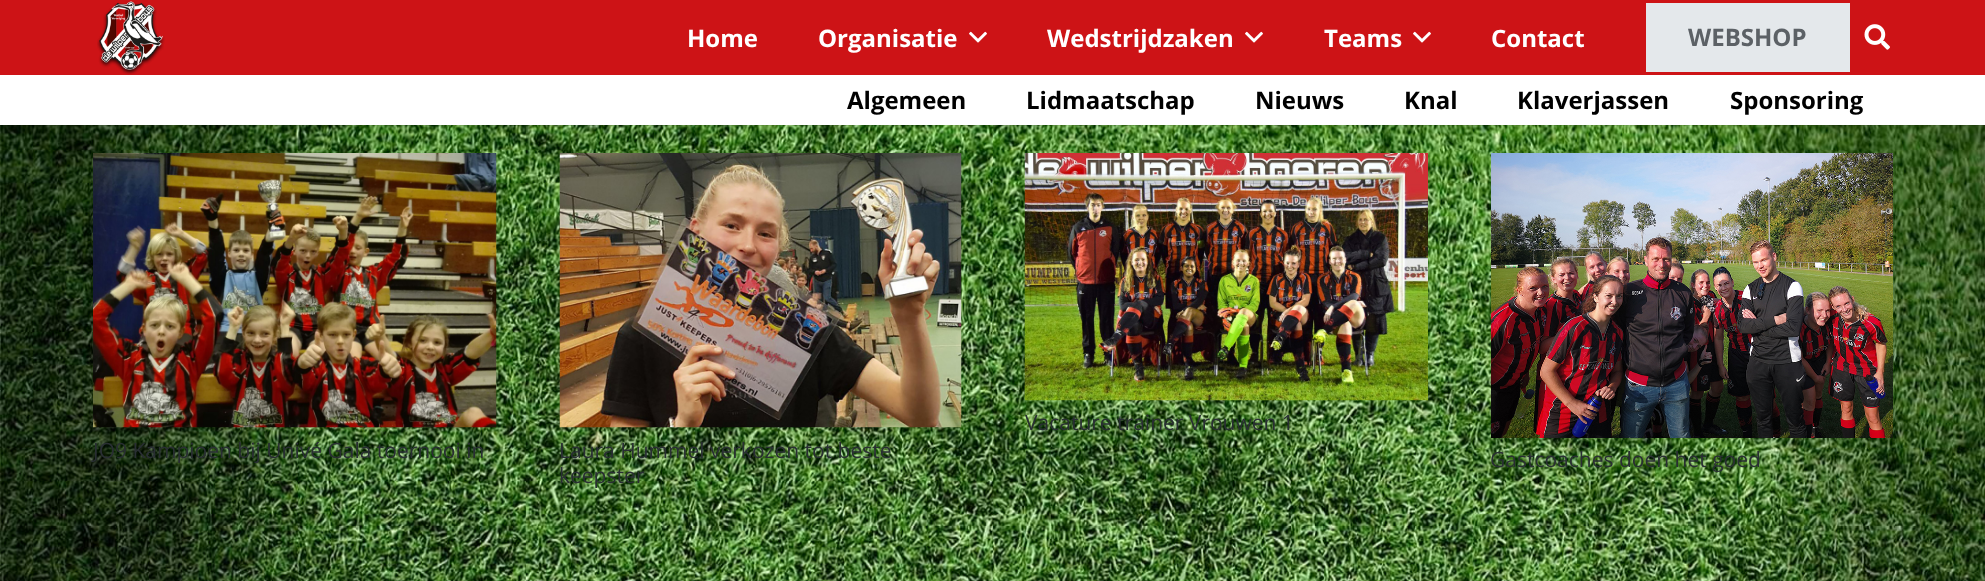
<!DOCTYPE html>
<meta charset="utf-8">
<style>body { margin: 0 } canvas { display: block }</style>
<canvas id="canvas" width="1985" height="581"></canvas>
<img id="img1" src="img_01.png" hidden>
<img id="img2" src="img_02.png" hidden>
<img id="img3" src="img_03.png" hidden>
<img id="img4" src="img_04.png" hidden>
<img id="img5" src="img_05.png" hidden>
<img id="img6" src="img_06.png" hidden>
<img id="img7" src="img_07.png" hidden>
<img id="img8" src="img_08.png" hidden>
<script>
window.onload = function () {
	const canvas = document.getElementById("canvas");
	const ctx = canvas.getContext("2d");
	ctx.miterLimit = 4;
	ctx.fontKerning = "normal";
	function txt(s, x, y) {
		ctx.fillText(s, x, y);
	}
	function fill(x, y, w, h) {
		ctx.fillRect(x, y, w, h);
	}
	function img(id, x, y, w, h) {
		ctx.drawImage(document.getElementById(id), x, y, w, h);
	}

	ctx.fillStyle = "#FFFFFF";
	fill(0, 0, 1985, 581);
	img("img1", 0, 125, 1985, 456);
	ctx.fillStyle = "#CD1316";
	fill(0, 0, 1985, 75);
	img("img2", 97, 1, 68, 74);
	img("img3", 969, 31, 18, 12);
	img("img3", 1245, 31, 18, 12);
	img("img3", 1413, 31, 18, 12);
	ctx.fillStyle = "#E4E8EB";
	fill(1646, 3, 204, 69);
	img("img4", 1864, 24, 26, 26);
	ctx.fillStyle = "rgba(0, 0, 0, 0.08)";
	fill(0, 125, 1985, 1);
	img("img5", 1024, 153, 404, 248);
	img("img6", 93, 153, 404, 275);
	img("img7", 559, 153, 403, 275);
	img("img8", 1491, 153, 402, 285);
	ctx.font = "bold 24px Open Sans";
	ctx.fillStyle = "#FFFFFF";
	txt("Home", 687, 47);
	txt("Organisatie", 818, 47);
	txt("Wedstrijdzaken", 1047, 47);
	txt("Teams", 1324, 47);
	txt("Contact", 1491, 47);
	ctx.fillStyle = "#5C6166";
	txt("WEBSHOP", 1688, 46);
	ctx.fillStyle = "#000000";
	txt("Algemeen", 847, 109);
	txt("Lidmaatschap", 1026, 109);
	txt("Nieuws", 1255, 109);
	txt("Knal", 1404, 109);
	txt("Klaverjassen", 1517, 109);
	txt("Sponsoring", 1730, 109);
	ctx.font = "21px Open Sans";
	ctx.fillStyle = "#292E33";
	txt("Vacature trainer Vrouwen 1", 1025, 430);
	txt("JO9 Kampioen bij Univé Gala toernooi in", 93, 458);
	txt("Laura Hummel verkozen tot beste", 559, 458);
	txt("keepster", 559, 483);
	txt("Gastcoaches doen het goed", 1490, 467);
};
</script>
